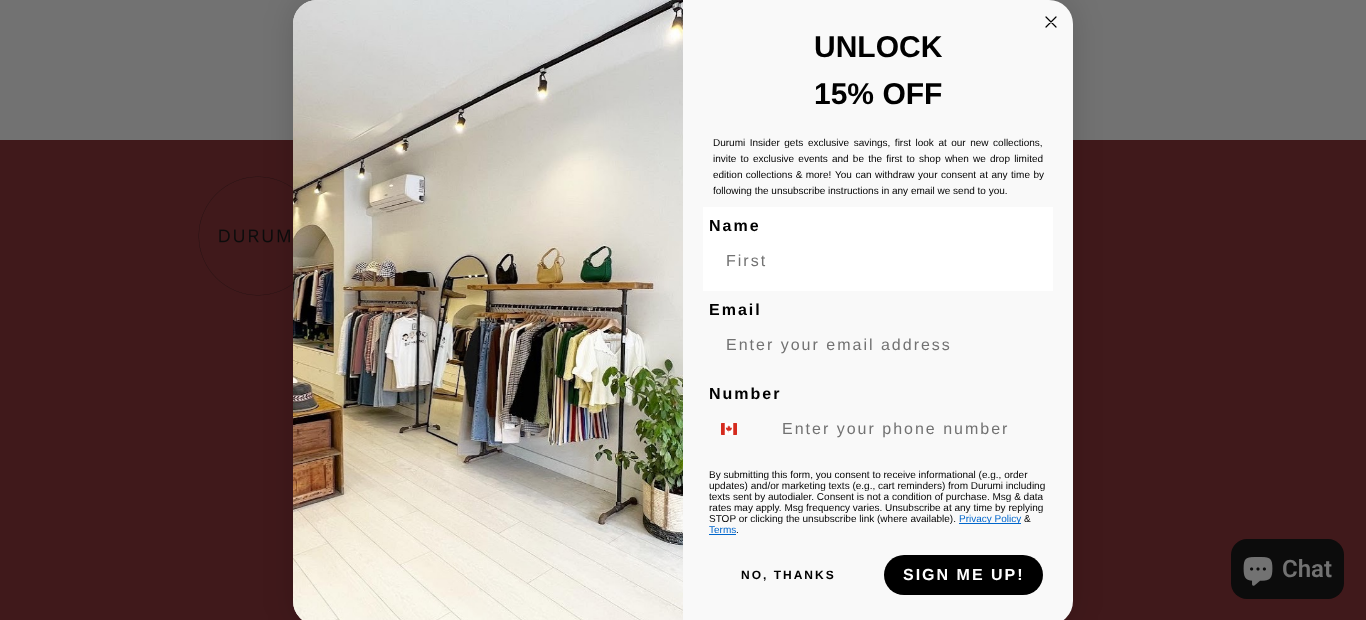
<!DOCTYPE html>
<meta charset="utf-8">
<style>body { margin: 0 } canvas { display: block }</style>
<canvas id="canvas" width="1366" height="620"></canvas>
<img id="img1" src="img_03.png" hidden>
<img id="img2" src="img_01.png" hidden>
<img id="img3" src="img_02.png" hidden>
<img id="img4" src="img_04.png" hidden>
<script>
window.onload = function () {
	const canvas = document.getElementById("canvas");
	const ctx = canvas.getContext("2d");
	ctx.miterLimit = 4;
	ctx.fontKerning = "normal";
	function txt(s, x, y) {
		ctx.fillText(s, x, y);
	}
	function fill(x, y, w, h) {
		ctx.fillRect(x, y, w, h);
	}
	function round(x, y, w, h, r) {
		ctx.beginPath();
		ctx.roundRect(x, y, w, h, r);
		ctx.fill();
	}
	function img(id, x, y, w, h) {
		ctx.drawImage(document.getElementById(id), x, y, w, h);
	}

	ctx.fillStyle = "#727272";
	fill(0, 0, 1366, 620);
	ctx.fillStyle = "#40191B";
	fill(0, 140, 1366, 480);
	img("img1", 198, 176, 95, 120);
	ctx.fillStyle = "rgba(0, 0, 0, 0.15)";
	ctx.filter = "blur(15px)";
	ctx.beginPath();
	ctx.roundRect(293, 0, 780, 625, 24);
	ctx.fill();
	ctx.filter = "none";
	ctx.fillStyle = "#F9F9F9";
	round(293, 0, 780, 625, 24);
	ctx.beginPath();
	ctx.moveTo(1046, 17);
	ctx.lineTo(1056, 27);
	ctx.moveTo(1046, 27);
	ctx.lineTo(1056, 17);
	ctx.closePath();
	ctx.strokeStyle = "#000000";
	ctx.lineWidth = 1.2;
	ctx.lineCap = "round";
	ctx.lineJoin = "round";
	ctx.stroke();
	img("img2", 293, 0, 390, 620);
	ctx.fillStyle = "#FFFFFF";
	fill(703, 207, 350, 84);
	img("img3", 721, 423, 16, 12);
	ctx.fillStyle = "#0066CC";
	fill(959, 523, 62, 1);
	fill(709, 534, 27, 1);
	ctx.fillStyle = "#000000";
	round(884, 555, 159, 40, 20);
	ctx.fillStyle = "#0C0C0C";
	round(1231, 539, 113, 60, 16);
	img("img4", 1243, 557, 30, 29);
	ctx.font = "bold 30px Liberation Sans";
	ctx.fillStyle = "#000000";
	txt("UNLOCK", 814, 57);
	txt("15% OFF", 814, 104);
	ctx.wordSpacing = "1.75px";
	ctx.font = "10px Liberation Sans";
	txt("Durumi Insider gets", 713, 146);
	txt("exclusive savings, first look at our new collections,", 808, 146);
	ctx.wordSpacing = "1.4px";
	txt("invite to exclusive events and be the first to shop when we drop limited", 713, 162);
	ctx.wordSpacing = "0.5px";
	txt("edition collections & more!", 713, 178);
	ctx.wordSpacing = "0.75px";
	txt("You can withdraw your consent at any time by", 835, 178);
	ctx.wordSpacing = "0px";
	txt("following the unsubscribe instructions in any email we send to you.", 713, 194);
	ctx.letterSpacing = "2px";
	ctx.font = "bold 16px Liberation Sans";
	txt("Name", 709, 231);
	ctx.font = "16px Liberation Sans";
	ctx.fillStyle = "#727272";
	txt("First", 726, 266);
	ctx.font = "bold 16px Liberation Sans";
	ctx.fillStyle = "#000000";
	txt("Email", 709, 315);
	ctx.font = "16px Liberation Sans";
	ctx.fillStyle = "#727272";
	txt("Enter your email address", 726, 350);
	ctx.font = "bold 16px Liberation Sans";
	ctx.fillStyle = "#000000";
	txt("Number", 709, 399);
	ctx.font = "16px Liberation Sans";
	ctx.fillStyle = "#727272";
	txt("Enter your phone number", 782, 434);
	ctx.letterSpacing = "0px";
	ctx.font = "10px Liberation Sans";
	ctx.fillStyle = "#000000";
	txt("By submitting this form, you consent to receive informational (e.g., order", 709, 478);
	txt("updates) and/or marketing texts (e.g., cart reminders) from Durumi including", 709, 489);
	txt("texts sent by autodialer. Consent is not a condition of purchase. Msg & data", 709, 500);
	txt("rates may apply. Msg frequency varies. Unsubscribe at any time by replying", 709, 511);
	txt("STOP or clicking the unsubscribe link (where available).", 709, 522);
	ctx.fillStyle = "#0066CC";
	txt("Privacy Policy", 959, 522);
	ctx.fillStyle = "#000000";
	txt("&", 1024, 522);
	ctx.fillStyle = "#0066CC";
	txt("Terms", 709, 533);
	ctx.fillStyle = "#000000";
	txt(".", 736, 533);
	ctx.letterSpacing = "2px";
	ctx.font = "bold 12px Liberation Sans";
	txt("NO, THANKS", 741, 579);
	ctx.font = "bold 16px Liberation Sans";
	ctx.fillStyle = "#FFFFFF";
	txt("SIGN ME UP!", 903, 580);
	ctx.letterSpacing = "0px";
	ctx.font = "600 24px Roboto";
	ctx.fillStyle = "#727272";
	txt("Chat", 1282, 577);
};
</script>
